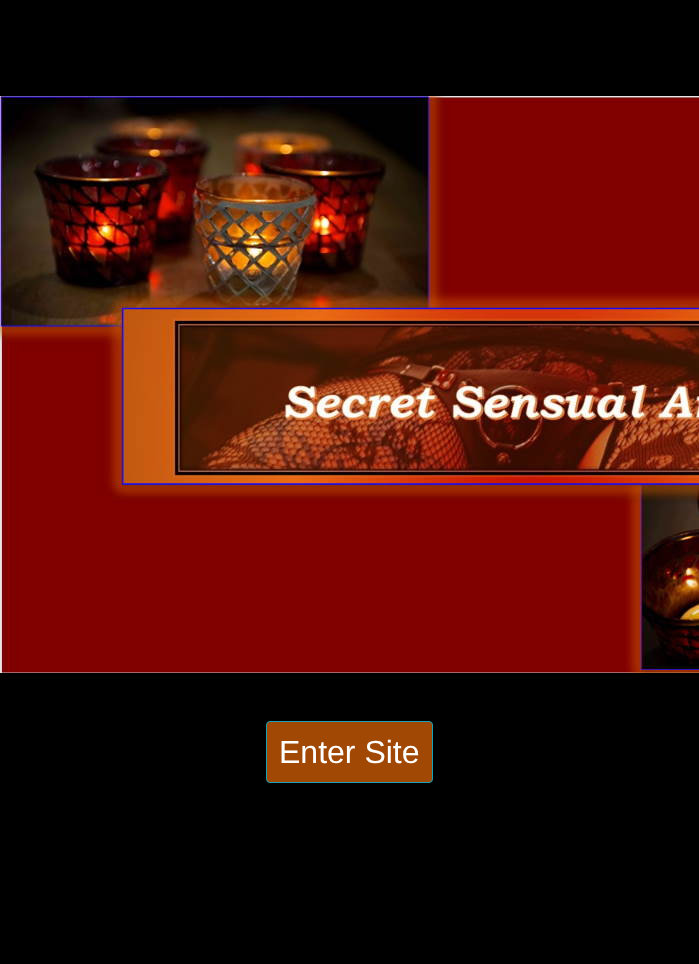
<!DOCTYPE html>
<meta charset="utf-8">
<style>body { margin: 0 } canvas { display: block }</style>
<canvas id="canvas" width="699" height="964"></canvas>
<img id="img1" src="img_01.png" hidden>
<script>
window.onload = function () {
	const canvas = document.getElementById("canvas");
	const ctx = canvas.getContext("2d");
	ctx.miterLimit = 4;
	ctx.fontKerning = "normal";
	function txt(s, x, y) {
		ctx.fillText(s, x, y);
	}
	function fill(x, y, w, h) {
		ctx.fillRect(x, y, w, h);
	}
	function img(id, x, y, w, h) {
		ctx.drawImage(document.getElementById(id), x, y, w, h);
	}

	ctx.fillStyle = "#000000";
	fill(0, 0, 699, 964);
	img("img1", 0, 96, 699, 577);
	ctx.fillStyle = "#A14805";
	ctx.beginPath();
	ctx.roundRect(266.5, 721.5, 166, 61, 3.5);
	ctx.fill();
	ctx.strokeStyle = "#17A2B8";
	ctx.stroke();
	ctx.font = "32px Liberation Sans";
	ctx.fillStyle = "#FFFFFF";
	txt("Enter Site", 279, 763);
};
</script>
